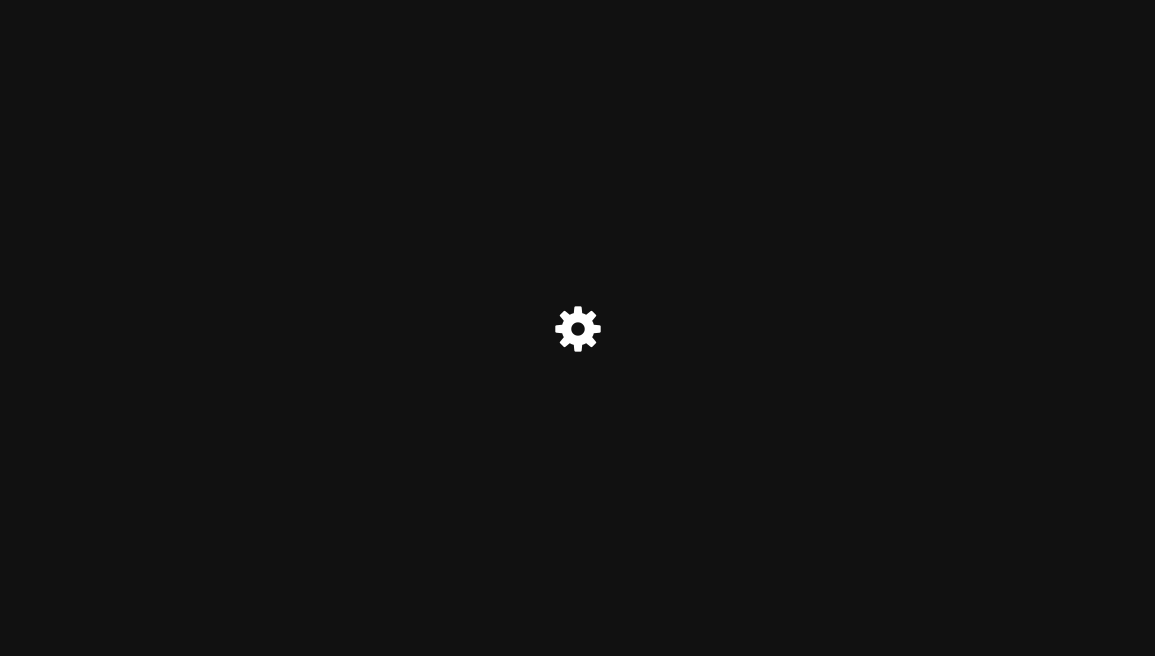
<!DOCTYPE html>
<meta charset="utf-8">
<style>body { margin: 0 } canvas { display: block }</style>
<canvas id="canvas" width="1155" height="656"></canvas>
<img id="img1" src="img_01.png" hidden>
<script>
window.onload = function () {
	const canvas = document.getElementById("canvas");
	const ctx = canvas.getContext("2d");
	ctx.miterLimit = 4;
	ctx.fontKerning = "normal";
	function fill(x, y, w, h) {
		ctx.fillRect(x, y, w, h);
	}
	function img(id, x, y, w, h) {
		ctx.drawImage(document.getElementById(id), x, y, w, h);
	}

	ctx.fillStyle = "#111111";
	fill(0, 0, 1155, 656);
	img("img1", 555, 306, 46, 46);
};
</script>
